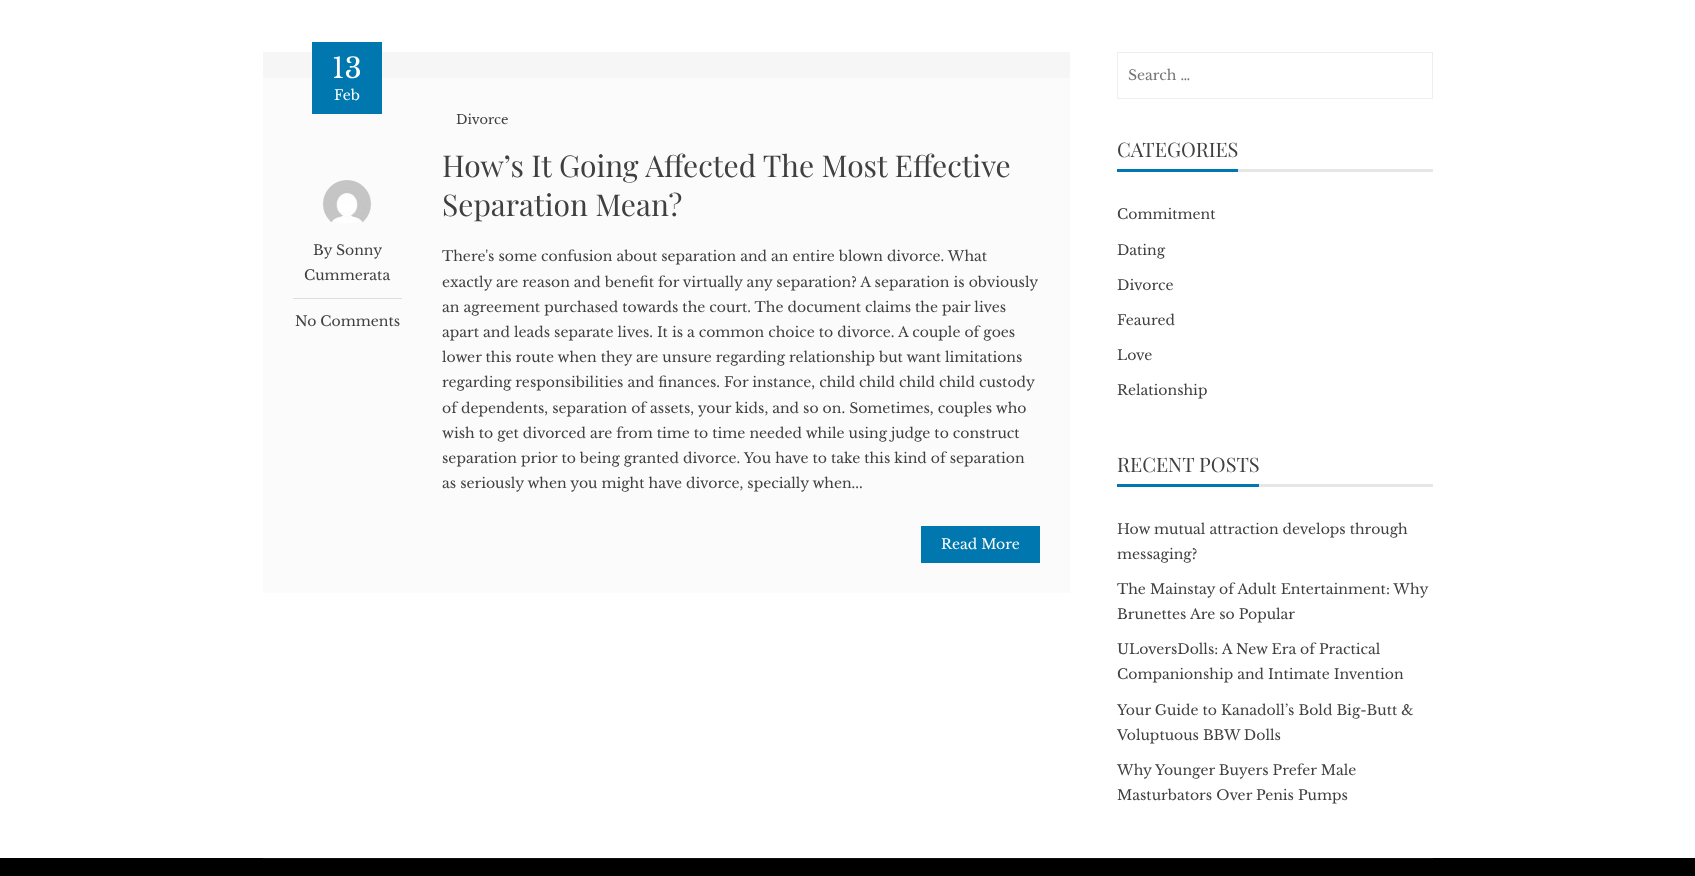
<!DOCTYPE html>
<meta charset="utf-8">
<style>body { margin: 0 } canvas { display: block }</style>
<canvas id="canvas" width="1695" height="876"></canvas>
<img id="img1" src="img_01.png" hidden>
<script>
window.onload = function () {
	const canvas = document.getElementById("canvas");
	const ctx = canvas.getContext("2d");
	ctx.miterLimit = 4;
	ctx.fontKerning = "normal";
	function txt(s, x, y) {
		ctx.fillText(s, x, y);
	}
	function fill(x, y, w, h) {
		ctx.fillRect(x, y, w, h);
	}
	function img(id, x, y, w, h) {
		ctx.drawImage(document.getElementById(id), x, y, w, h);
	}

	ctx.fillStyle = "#FFFFFF";
	fill(0, 0, 1695, 876);
	ctx.fillStyle = "#F6F6F6";
	fill(263, 52, 807, 26);
	ctx.fillStyle = "#FBFBFB";
	fill(263, 78, 807, 515);
	ctx.fillStyle = "#0078AF";
	fill(312, 42, 70, 72);
	ctx.fillStyle = "#DDDDDD";
	fill(293, 298, 109, 1);
	img("img1", 323, 180, 48, 43);
	ctx.fillStyle = "#0078AF";
	fill(921, 526, 119, 37);
	ctx.strokeStyle = "#EEEEEE";
	ctx.strokeRect(1117.5, 52.5, 315, 46);
	ctx.fillStyle = "#E6E6E6";
	fill(1238, 169, 195, 3);
	ctx.fillStyle = "#0078AF";
	fill(1117, 169, 121, 3);
	ctx.fillStyle = "#E6E6E6";
	fill(1259, 484, 174, 3);
	ctx.fillStyle = "#0078AF";
	fill(1117, 484, 142, 3);
	ctx.fillStyle = "#000000";
	fill(0, 858, 1695, 18);
	ctx.fillStyle = "#111111";
	fill(263, 858, 1170, 1);
	ctx.font = "28px Libre Baskerville";
	ctx.fillStyle = "#FFFFFF";
	txt("13", 332, 78);
	ctx.font = "14px Libre Baskerville";
	txt("Feb", 334, 100);
	ctx.fillStyle = "#404040";
	txt("By Sonny", 313, 255);
	txt("Cummerata", 304, 280);
	txt("No Comments", 295, 326);
	ctx.font = "13px Libre Baskerville";
	txt("Divorce", 456, 124);
	ctx.font = "30px Playfair Display";
	txt("How’s It Going Affected The Most Effective", 442, 177);
	txt("Separation Mean?", 442, 216);
	ctx.font = "14px Libre Baskerville";
	txt("There's some confusion about separation and an entire blown divorce. What", 442, 261);
	txt("exactly are reason and benefit for virtually any separation? A separation is obviously", 442, 287);
	txt("an agreement purchased towards the court. The document claims the pair lives", 442, 312);
	txt("apart and leads separate lives. It is a common choice to divorce. A couple of goes", 442, 337);
	txt("lower this route when they are unsure regarding relationship but want limitations", 442, 362);
	txt("regarding responsibilities and finances. For instance, child child child child custody", 442, 387);
	txt("of dependents, separation of assets, your kids, and so on. Sometimes, couples who", 442, 413);
	txt("wish to get divorced are from time to time needed while using judge to construct", 442, 438);
	txt("separation prior to being granted divorce. You have to take this kind of separation", 442, 463);
	txt("as seriously when you might have divorce, specially when...", 442, 488);
	ctx.fillStyle = "#FFFFFF";
	txt("Read More", 941, 549);
	ctx.fillStyle = "#757575";
	txt("Search …", 1128, 80);
	ctx.font = "20px Playfair Display";
	ctx.fillStyle = "#404040";
	txt("CATEGORIES", 1117, 157);
	ctx.font = "14px Libre Baskerville";
	txt("Commitment", 1117, 219);
	txt("Dating", 1117, 255);
	txt("Divorce", 1117, 290);
	txt("Feaured", 1117, 325);
	txt("Love", 1117, 360);
	txt("Relationship", 1117, 395);
	ctx.font = "20px Playfair Display";
	txt("RECENT POSTS", 1117, 472);
	ctx.font = "14px Libre Baskerville";
	txt("How mutual attraction develops through", 1117, 534);
	txt("messaging?", 1117, 559);
	txt("The Mainstay of Adult Entertainment: Why", 1117, 594);
	txt("Brunettes Are so Popular", 1117, 619);
	txt("ULoversDolls: A New Era of Practical", 1117, 654);
	txt("Companionship and Intimate Invention", 1117, 679);
	txt("Your Guide to Kanadoll’s Bold Big-Butt &", 1117, 715);
	txt("Voluptuous BBW Dolls", 1117, 740);
	txt("Why Younger Buyers Prefer Male", 1117, 775);
	txt("Masturbators Over Penis Pumps", 1117, 800);
};
</script>
